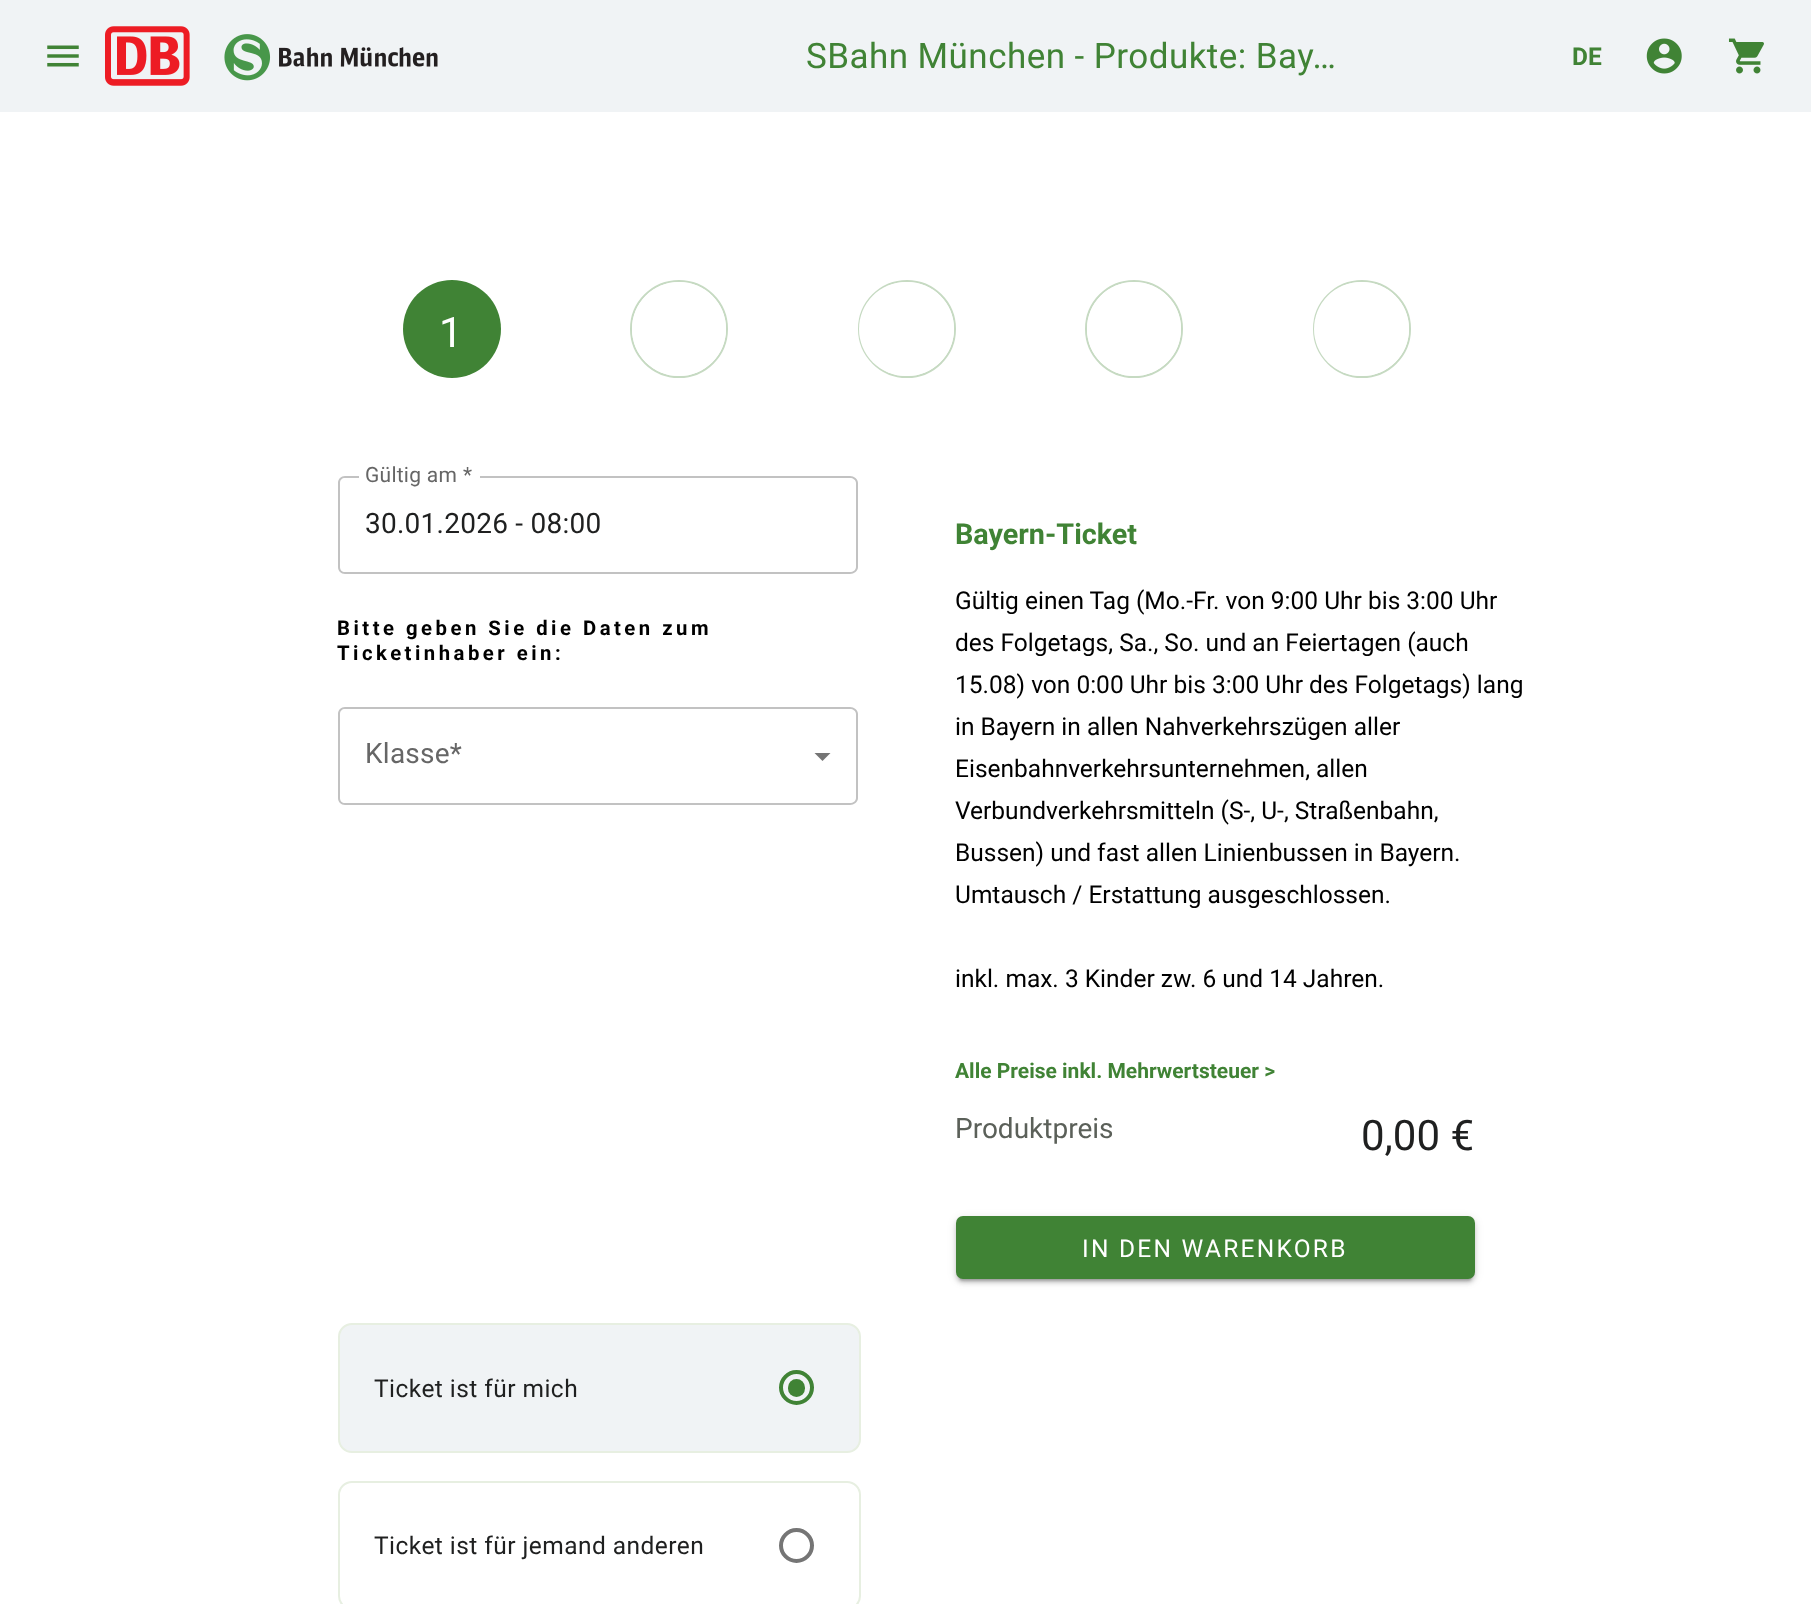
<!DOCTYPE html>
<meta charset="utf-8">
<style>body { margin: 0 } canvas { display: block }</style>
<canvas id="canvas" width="1811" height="1604"></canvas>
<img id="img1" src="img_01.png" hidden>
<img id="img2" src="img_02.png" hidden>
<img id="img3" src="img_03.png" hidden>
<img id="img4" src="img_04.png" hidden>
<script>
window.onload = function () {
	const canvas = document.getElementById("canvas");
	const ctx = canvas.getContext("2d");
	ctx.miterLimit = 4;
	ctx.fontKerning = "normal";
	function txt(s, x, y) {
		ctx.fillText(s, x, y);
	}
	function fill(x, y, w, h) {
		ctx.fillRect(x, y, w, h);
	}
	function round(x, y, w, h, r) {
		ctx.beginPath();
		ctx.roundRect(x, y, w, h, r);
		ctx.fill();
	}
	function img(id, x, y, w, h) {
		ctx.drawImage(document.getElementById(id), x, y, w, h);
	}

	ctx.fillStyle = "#FFFFFF";
	fill(0, 0, 1811, 1604);
	ctx.fillStyle = "#F0F3F5";
	fill(0, 0, 1811, 112);
	img("img1", 47, 45, 32, 22);
	img("img2", 105, 26, 333, 60);
	img("img3", 1646, 38, 36, 36);
	img("img4", 1728, 38, 36, 36);
	ctx.fillStyle = "#408335";
	ctx.beginPath();
	ctx.arc(452, 329, 49, 0, Math.PI * 2);
	ctx.fill();
	ctx.beginPath();
	ctx.arc(679, 329, 48, 0, Math.PI * 2);
	ctx.strokeStyle = "#C6DAC2";
	ctx.lineWidth = 2;
	ctx.stroke();
	ctx.save();
	ctx.beginPath();
	ctx.roundRect(632, 282, 94, 94, 47);
	ctx.clip();
	ctx.fillStyle = "#FFFFFF";
	ctx.beginPath();
	ctx.arc(679.5, 329.5, 94.5, 0, Math.PI * 2);
	ctx.fill();
	ctx.restore();
	ctx.beginPath();
	ctx.arc(907, 329, 48, 0, Math.PI * 2);
	ctx.stroke();
	ctx.save();
	ctx.beginPath();
	ctx.roundRect(859, 282, 95, 94, 47);
	ctx.clip();
	ctx.fillStyle = "#FFFFFF";
	ctx.beginPath();
	ctx.arc(906.5, 329.5, 94.5, 0, Math.PI * 2);
	ctx.fill();
	ctx.restore();
	ctx.beginPath();
	ctx.arc(1134, 329, 48, 0, Math.PI * 2);
	ctx.stroke();
	ctx.save();
	ctx.beginPath();
	ctx.roundRect(1087, 282, 94, 94, 47);
	ctx.clip();
	ctx.fillStyle = "#FFFFFF";
	ctx.beginPath();
	ctx.arc(1134.5, 329.5, 94.5, 0, Math.PI * 2);
	ctx.fill();
	ctx.restore();
	ctx.beginPath();
	ctx.arc(1362, 329, 48, 0, Math.PI * 2);
	ctx.stroke();
	ctx.save();
	ctx.beginPath();
	ctx.roundRect(1314, 282, 95, 94, 47);
	ctx.clip();
	ctx.fillStyle = "#FFFFFF";
	ctx.beginPath();
	ctx.arc(1361.5, 329.5, 94.5, 0, Math.PI * 2);
	ctx.fill();
	ctx.restore();
	ctx.fillStyle = "#C2C2C2";
	ctx.beginPath();
	ctx.moveTo(345, 476);
	ctx.lineTo(359, 476);
	ctx.lineTo(359, 574);
	ctx.lineTo(345, 574);
	ctx.bezierCurveTo(341, 574, 338, 571, 338, 567);
	ctx.lineTo(338, 483);
	ctx.bezierCurveTo(338, 479, 341, 476, 345, 476);
	ctx.closePath();
	ctx.moveTo(345, 478);
	ctx.lineTo(359, 478);
	ctx.lineTo(359, 572);
	ctx.lineTo(345, 572);
	ctx.bezierCurveTo(342, 572, 340, 570, 340, 567);
	ctx.lineTo(340, 483);
	ctx.bezierCurveTo(340, 480, 342, 478, 345, 478);
	ctx.closePath();
	ctx.fill("evenodd");
	fill(359, 572, 121, 2);
	ctx.beginPath();
	ctx.moveTo(480, 476);
	ctx.lineTo(850, 476);
	ctx.bezierCurveTo(854, 476, 858, 479, 858, 483);
	ctx.lineTo(858, 567);
	ctx.bezierCurveTo(858, 571, 854, 574, 850, 574);
	ctx.lineTo(480, 574);
	ctx.closePath();
	ctx.moveTo(480, 478);
	ctx.lineTo(850, 478);
	ctx.bezierCurveTo(853, 478, 856, 480, 856, 483);
	ctx.lineTo(856, 567);
	ctx.bezierCurveTo(856, 570, 853, 572, 850, 572);
	ctx.lineTo(480, 572);
	ctx.closePath();
	ctx.fill("evenodd");
	ctx.beginPath();
	ctx.moveTo(345, 707);
	ctx.lineTo(359, 707);
	ctx.lineTo(359, 805);
	ctx.lineTo(345, 805);
	ctx.bezierCurveTo(341, 805, 338, 802, 338, 798);
	ctx.lineTo(338, 714);
	ctx.bezierCurveTo(338, 710, 341, 707, 345, 707);
	ctx.closePath();
	ctx.moveTo(345, 709);
	ctx.lineTo(359, 709);
	ctx.lineTo(359, 803);
	ctx.lineTo(345, 803);
	ctx.bezierCurveTo(342, 803, 340, 801, 340, 798);
	ctx.lineTo(340, 714);
	ctx.bezierCurveTo(340, 711, 342, 709, 345, 709);
	ctx.closePath();
	ctx.fill("evenodd");
	fill(359, 707, 96, 2);
	fill(359, 803, 96, 2);
	ctx.save();
	ctx.beginPath();
	ctx.rect(814, 753, 17, 8);
	ctx.clip();
	ctx.fillStyle = "#757575";
	ctx.beginPath();
	ctx.moveTo(814, 752.5);
	ctx.lineTo(822.5, 761);
	ctx.lineTo(831, 752.5);
	ctx.closePath();
	ctx.fill("evenodd");
	ctx.restore();
	ctx.beginPath();
	ctx.moveTo(455, 707);
	ctx.lineTo(850, 707);
	ctx.bezierCurveTo(854, 707, 858, 710, 858, 714);
	ctx.lineTo(858, 798);
	ctx.bezierCurveTo(858, 802, 854, 805, 850, 805);
	ctx.lineTo(455, 805);
	ctx.closePath();
	ctx.moveTo(455, 709);
	ctx.lineTo(850, 709);
	ctx.bezierCurveTo(853, 709, 856, 711, 856, 714);
	ctx.lineTo(856, 798);
	ctx.bezierCurveTo(856, 801, 853, 803, 850, 803);
	ctx.lineTo(455, 803);
	ctx.closePath();
	ctx.fill("evenodd");
	ctx.fillStyle = "#F0F3F5";
	ctx.beginPath();
	ctx.roundRect(339, 1324, 521, 128, 13);
	ctx.fill();
	ctx.strokeStyle = "#E7EFE1";
	ctx.stroke();
	ctx.beginPath();
	ctx.arc(796.5, 1387.5, 15.5, 0, Math.PI * 2);
	ctx.strokeStyle = "#408335";
	ctx.lineWidth = 4;
	ctx.stroke();
	ctx.fillStyle = "#408335";
	round(788, 1379, 17, 18, 8.5);
	ctx.beginPath();
	ctx.roundRect(339, 1482, 521, 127, 13);
	ctx.strokeStyle = "#E7EFE1";
	ctx.lineWidth = 2;
	ctx.stroke();
	ctx.beginPath();
	ctx.arc(796.5, 1545.5, 15.5, 0, Math.PI * 2);
	ctx.strokeStyle = "#757575";
	ctx.lineWidth = 4;
	ctx.stroke();
	ctx.fillStyle = "rgba(0, 0, 0, 0.12)";
	ctx.filter = "blur(4.5px)";
	ctx.beginPath();
	ctx.roundRect(956, 1218, 519, 63, 7);
	ctx.fill();
	ctx.filter = "none";
	ctx.fillStyle = "rgba(0, 0, 0, 0.14)";
	ctx.filter = "blur(2px)";
	ctx.beginPath();
	ctx.roundRect(956, 1220, 519, 63, 7);
	ctx.fill();
	ctx.filter = "none";
	ctx.fillStyle = "rgba(0, 0, 0, 0.2)";
	ctx.filter = "blur(1px)";
	ctx.beginPath();
	ctx.roundRect(959, 1225, 513, 56, 4);
	ctx.fill();
	ctx.filter = "none";
	ctx.fillStyle = "#408335";
	round(956, 1216, 519, 63, 7);
	ctx.letterSpacing = "0.45px";
	ctx.font = "35px Roboto";
	txt("SBahn München - Produkte: Bay…", 806, 68);
	ctx.letterSpacing = "0px";
	ctx.font = "bold 24.5px Roboto";
	txt("DE", 1572, 65);
	ctx.font = "42px Roboto";
	ctx.fillStyle = "#FFFFFF";
	txt("1", 439, 347);
	ctx.letterSpacing = "0.25px";
	ctx.font = "21px Roboto";
	ctx.fillStyle = "#666666";
	txt("Gültig am", 365, 482);
	txt("*", 463, 482);
	ctx.font = "28px Roboto";
	ctx.fillStyle = "#1F2020";
	txt("30.01.2026 - 08:00", 365, 533);
	ctx.letterSpacing = "3.5px";
	ctx.font = "bold 20.3px Roboto";
	ctx.fillStyle = "#000000";
	txt("Bitte geben Sie die Daten zum", 337, 635);
	txt("Ticketinhaber ein:", 337, 660);
	ctx.letterSpacing = "0.25px";
	ctx.font = "28px Roboto";
	ctx.fillStyle = "#666666";
	txt("Klasse*", 365, 763);
	ctx.letterSpacing = "0.45px";
	ctx.font = "24.5px Roboto";
	ctx.fillStyle = "#1F2020";
	txt("Ticket ist für mich", 374, 1397);
	txt("Ticket ist für jemand anderen", 374, 1554);
	ctx.letterSpacing = "0px";
	ctx.font = "bold 28.75px Roboto";
	ctx.fillStyle = "#408335";
	txt("Bayern-Ticket", 955, 544);
	ctx.font = "24.5px Roboto";
	ctx.fillStyle = "#000000";
	txt("Gültig einen Tag (Mo.-Fr. von 9:00 Uhr bis 3:00 Uhr", 955, 609);
	txt("des Folgetags, Sa., So. und an Feiertagen (auch", 955, 651);
	txt("15.08) von 0:00 Uhr bis 3:00 Uhr des Folgetags) lang", 955, 693);
	txt("in Bayern in allen Nahverkehrszügen aller", 955, 735);
	txt("Eisenbahnverkehrsunternehmen, allen", 955, 777);
	txt("Verbundverkehrsmitteln (S-, U-, Straßenbahn,", 955, 819);
	txt("Bussen) und fast allen Linienbussen in Bayern.", 955, 861);
	txt("Umtausch / Erstattung ausgeschlossen.", 955, 903);
	txt("inkl. max. 3 Kinder zw. 6 und 14 Jahren.", 955, 987);
	ctx.font = "bold 21px Roboto";
	ctx.fillStyle = "#408335";
	txt("Alle Preise inkl. Mehrwertsteuer >", 955, 1078);
	ctx.font = "28px Roboto";
	ctx.fillStyle = "#5B6059";
	txt("Produktpreis", 955, 1138);
	ctx.font = "42px Roboto";
	ctx.fillStyle = "#1F2020";
	txt("0,00 €", 1361, 1150);
	ctx.letterSpacing = "2.25px";
	ctx.font = "24.5px Roboto";
	ctx.fillStyle = "#FFFFFF";
	txt("IN DEN WARENKORB", 1082, 1257);
};
</script>
